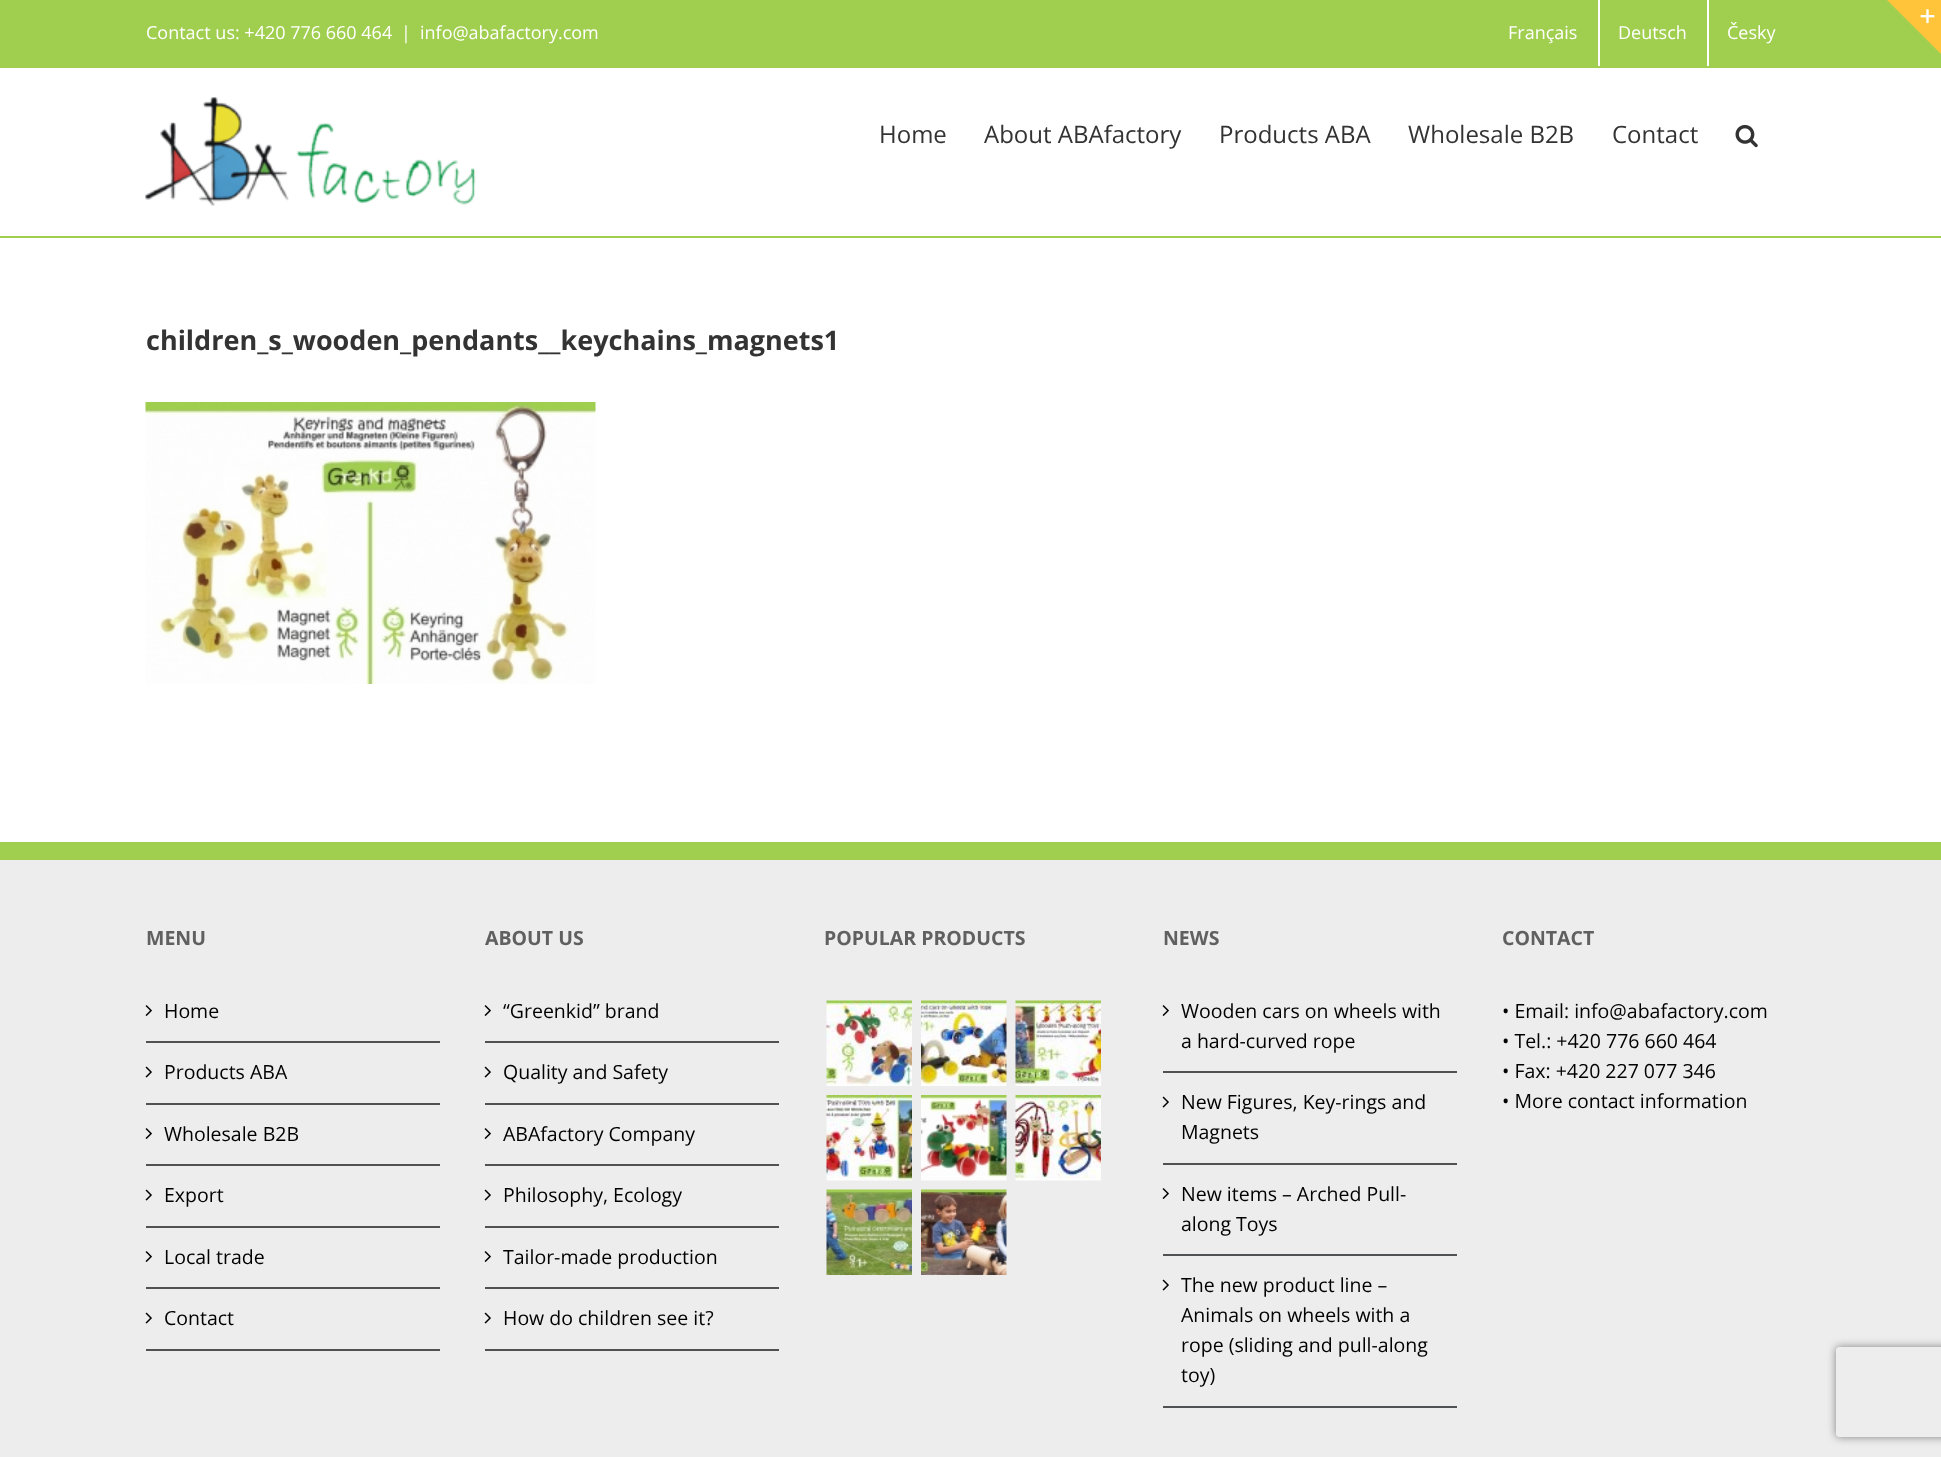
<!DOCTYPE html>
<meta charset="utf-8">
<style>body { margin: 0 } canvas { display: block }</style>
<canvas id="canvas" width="1941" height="1457"></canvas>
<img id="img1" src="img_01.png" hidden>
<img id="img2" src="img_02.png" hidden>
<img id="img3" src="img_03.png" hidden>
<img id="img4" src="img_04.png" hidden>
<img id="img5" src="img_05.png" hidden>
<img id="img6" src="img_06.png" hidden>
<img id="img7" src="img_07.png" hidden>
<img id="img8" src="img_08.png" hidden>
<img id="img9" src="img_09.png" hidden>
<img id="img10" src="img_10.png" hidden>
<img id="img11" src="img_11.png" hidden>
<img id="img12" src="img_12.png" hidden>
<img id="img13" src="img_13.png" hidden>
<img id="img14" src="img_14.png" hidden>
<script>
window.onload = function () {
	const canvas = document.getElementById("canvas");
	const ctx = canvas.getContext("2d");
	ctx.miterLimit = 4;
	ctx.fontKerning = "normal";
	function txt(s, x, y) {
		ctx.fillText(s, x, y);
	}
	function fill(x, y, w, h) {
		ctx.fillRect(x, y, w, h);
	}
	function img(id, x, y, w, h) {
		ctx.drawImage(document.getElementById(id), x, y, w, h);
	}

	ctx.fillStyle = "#FFFFFF";
	fill(0, 0, 1941, 1457);
	ctx.fillStyle = "#A0CE4E";
	fill(0, 0, 1941, 68);
	ctx.fillStyle = "#FFFFFF";
	fill(1598, 0, 2, 66);
	fill(1707, 0, 2, 66);
	ctx.fillStyle = "#A0CE4E";
	fill(0, 236, 1941, 2);
	img("img1", 145, 97, 331, 109);
	img("img2", 1735, 124, 23, 24);
	ctx.fillStyle = "#FFC43A";
	ctx.beginPath();
	ctx.moveTo(1887, 0);
	ctx.lineTo(1941, 0);
	ctx.lineTo(1941, 54);
	ctx.closePath();
	ctx.fill();
	img("img3", 1920, 9, 15, 15);
	img("img4", 145, 402, 451, 282);
	ctx.fillStyle = "#EDEDED";
	fill(0, 860, 1941, 597);
	ctx.fillStyle = "#A0CE4E";
	fill(0, 842, 1941, 18);
	ctx.fillStyle = "#505152";
	fill(146, 1041, 294, 2);
	img("img5", 145, 1005, 7, 11);
	fill(146, 1103, 294, 2);
	img("img6", 145, 1066, 7, 12);
	fill(146, 1164, 294, 2);
	img("img5", 145, 1128, 7, 11);
	fill(146, 1226, 294, 2);
	img("img6", 145, 1189, 7, 12);
	fill(146, 1287, 294, 2);
	img("img5", 145, 1251, 7, 11);
	fill(146, 1349, 294, 2);
	img("img6", 145, 1312, 7, 12);
	fill(485, 1041, 294, 2);
	img("img5", 484, 1005, 7, 11);
	fill(485, 1103, 294, 2);
	img("img6", 484, 1066, 7, 12);
	fill(485, 1164, 294, 2);
	img("img5", 484, 1128, 7, 11);
	fill(485, 1226, 294, 2);
	img("img6", 484, 1189, 7, 12);
	fill(485, 1287, 294, 2);
	img("img5", 484, 1251, 7, 11);
	fill(485, 1349, 294, 2);
	img("img6", 484, 1312, 7, 12);
	img("img7", 826, 1000, 86, 86);
	img("img8", 921, 1000, 86, 86);
	img("img9", 1015, 1000, 86, 86);
	img("img10", 826, 1095, 86, 86);
	img("img11", 921, 1095, 86, 86);
	img("img12", 1015, 1095, 86, 86);
	img("img13", 826, 1189, 86, 86);
	img("img14", 921, 1189, 86, 86);
	fill(1163, 1071, 294, 2);
	img("img5", 1162, 1005, 7, 11);
	fill(1163, 1163, 294, 2);
	img("img6", 1162, 1096, 7, 12);
	fill(1163, 1254, 294, 2);
	img("img5", 1162, 1188, 7, 11);
	fill(1163, 1406, 294, 2);
	img("img6", 1162, 1279, 7, 12);
	ctx.save();
	ctx.beginPath();
	ctx.moveTo(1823, 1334);
	ctx.lineTo(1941, 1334);
	ctx.lineTo(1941, 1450);
	ctx.lineTo(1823, 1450);
	ctx.closePath();
	ctx.moveTo(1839, 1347);
	ctx.lineTo(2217, 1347);
	ctx.bezierCurveTo(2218.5, 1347, 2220, 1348.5, 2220, 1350);
	ctx.lineTo(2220, 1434);
	ctx.bezierCurveTo(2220, 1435.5, 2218.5, 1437, 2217, 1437);
	ctx.lineTo(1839, 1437);
	ctx.bezierCurveTo(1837.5, 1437, 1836, 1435.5, 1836, 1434);
	ctx.lineTo(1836, 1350);
	ctx.bezierCurveTo(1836, 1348.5, 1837.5, 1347, 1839, 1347);
	ctx.closePath();
	ctx.clip("evenodd");
	ctx.fillStyle = "#808080";
	ctx.filter = "blur(4px)";
	ctx.beginPath();
	ctx.roundRect(1836, 1347, 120, 90, 3);
	ctx.fill();
	ctx.filter = "none";
	ctx.restore();
	ctx.font = "18px Open Sans";
	ctx.fillStyle = "#FFFFFF";
	txt("Contact us: +420 776 660 464", 146, 39);
	txt("|", 401, 39);
	txt("info@abafactory.com", 420, 39);
	txt("Français", 1508, 39);
	txt("Deutsch", 1618, 39);
	txt("Česky", 1727, 39);
	ctx.font = "24px Open Sans";
	ctx.fillStyle = "#333333";
	txt("Home", 879, 143);
	txt("About ABAfactory", 984, 143);
	txt("Products ABA", 1219, 143);
	txt("Wholesale B2B", 1408, 143);
	txt("Contact", 1612, 143);
	ctx.font = "bold 27px Open Sans";
	txt("children_s_wooden_pendants__keychains_magnets1", 146, 350);
	ctx.font = "bold 19.5px Open Sans";
	ctx.fillStyle = "#606060";
	txt("MENU", 146, 945);
	ctx.font = "19.5px Open Sans";
	ctx.fillStyle = "#000000";
	txt("Home", 164, 1018);
	txt("Products ABA", 164, 1079);
	txt("Wholesale B2B", 164, 1141);
	txt("Export", 164, 1202);
	txt("Local trade", 164, 1264);
	txt("Contact", 164, 1325);
	ctx.font = "bold 19.5px Open Sans";
	ctx.fillStyle = "#606060";
	txt("ABOUT US", 485, 945);
	ctx.font = "19.5px Open Sans";
	ctx.fillStyle = "#000000";
	txt("“Greenkid” brand", 503, 1018);
	txt("Quality and Safety", 503, 1079);
	txt("ABAfactory Company", 503, 1141);
	txt("Philosophy, Ecology", 503, 1202);
	txt("Tailor-made production", 503, 1264);
	txt("How do children see it?", 503, 1325);
	ctx.font = "bold 19.5px Open Sans";
	ctx.fillStyle = "#606060";
	txt("POPULAR PRODUCTS", 824, 945);
	txt("NEWS", 1163, 945);
	ctx.font = "19.5px Open Sans";
	ctx.fillStyle = "#000000";
	txt("Wooden cars on wheels with", 1181, 1018);
	txt("a hard-curved rope", 1181, 1048);
	txt("New Figures, Key-rings and", 1181, 1109);
	txt("Magnets", 1181, 1139);
	txt("New items – Arched Pull-", 1181, 1201);
	txt("along Toys", 1181, 1231);
	txt("The new product line –", 1181, 1292);
	txt("Animals on wheels with a", 1181, 1322);
	txt("rope (sliding and pull-along", 1181, 1352);
	txt("toy)", 1181, 1382);
	ctx.font = "bold 19.5px Open Sans";
	ctx.fillStyle = "#606060";
	txt("CONTACT", 1502, 945);
	ctx.font = "19.5px Open Sans";
	ctx.fillStyle = "#000000";
	txt("• Email: info@abafactory.com", 1502, 1018);
	txt("• Tel.: +420 776 660 464", 1502, 1048);
	txt("• Fax: +420 227 077 346", 1502, 1078);
	txt("• More contact information", 1502, 1108);
};
</script>
